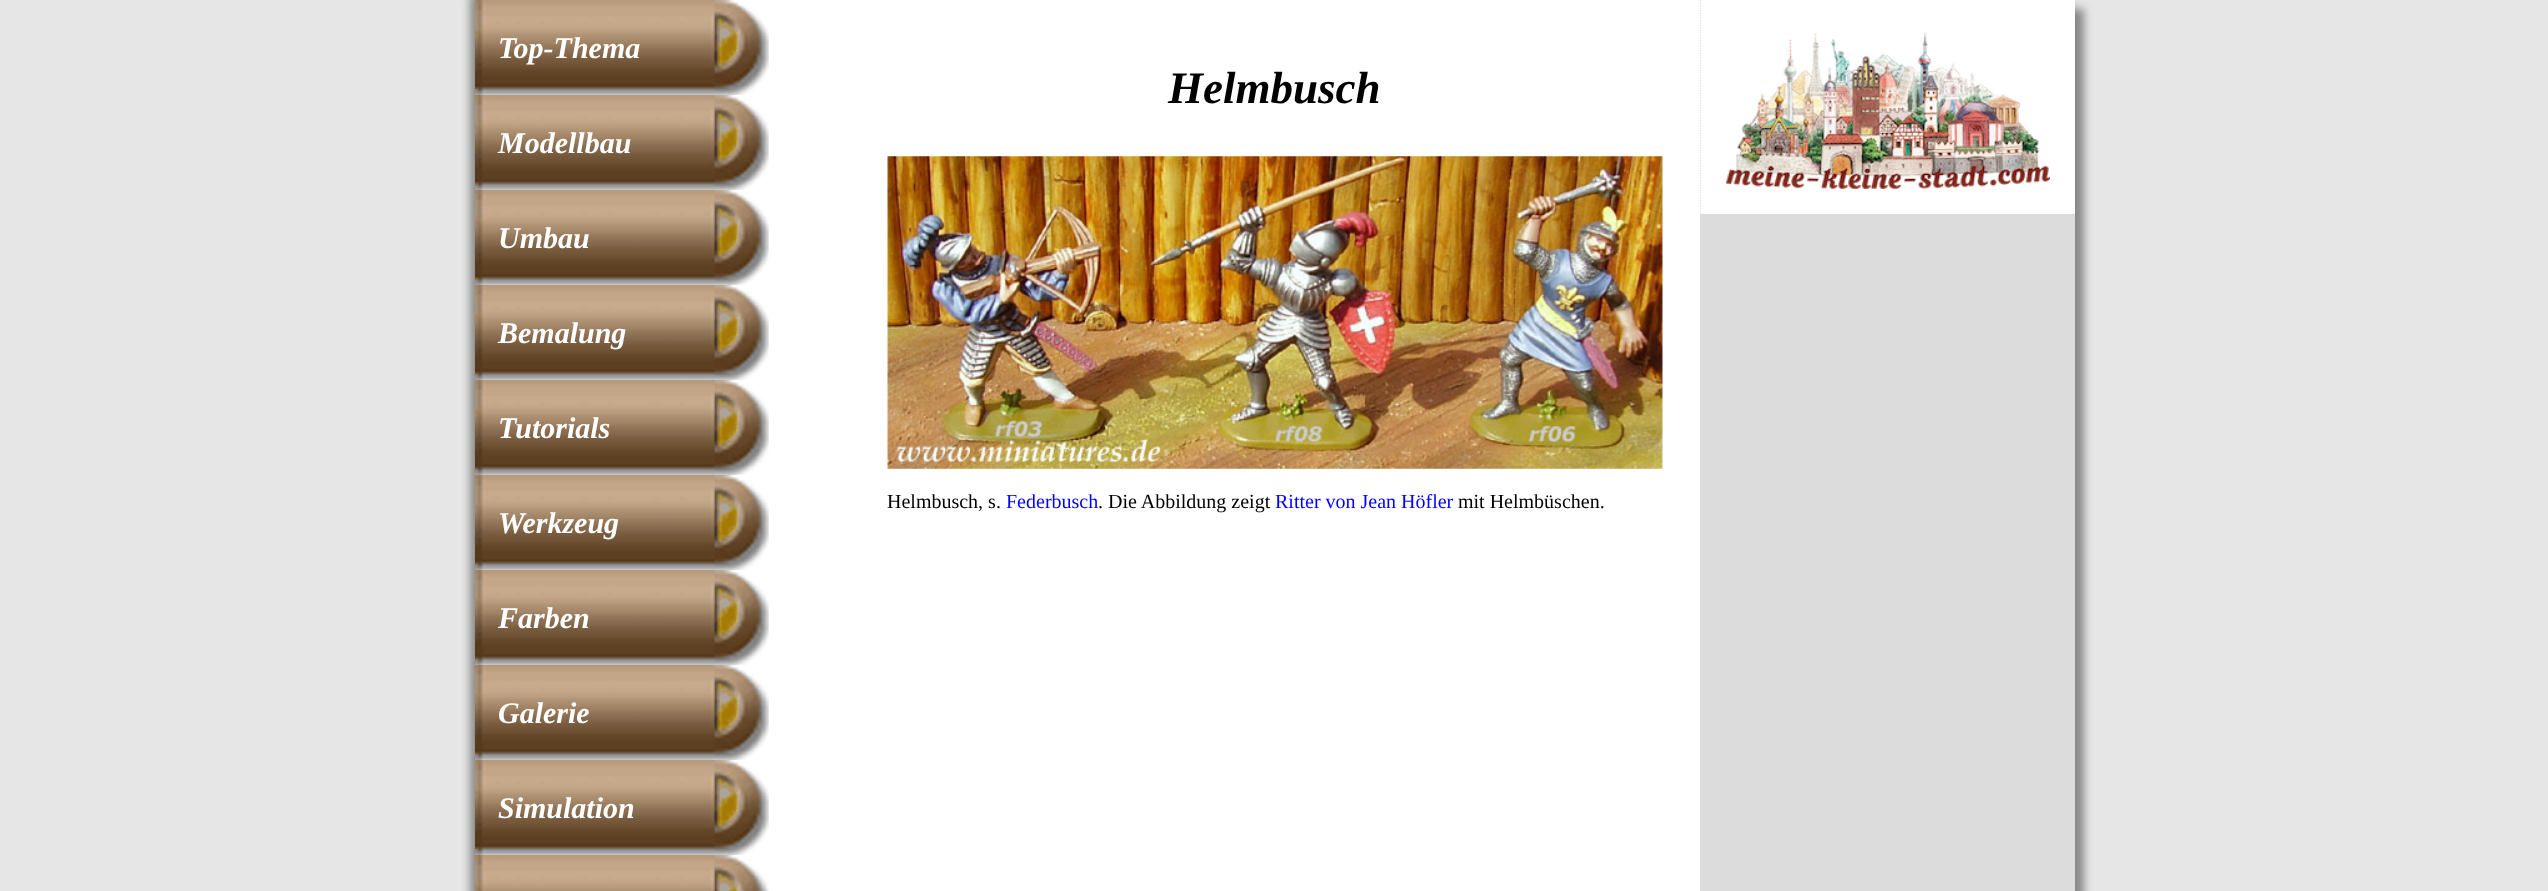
<!DOCTYPE html>
<meta charset="utf-8">
<style>body { margin: 0 } canvas { display: block }</style>
<canvas id="canvas" width="2548" height="891"></canvas>
<img id="img1" src="img_01.png" hidden>
<img id="img2" src="img_02.png" hidden>
<img id="img3" src="img_03.png" hidden>
<img id="img4" src="img_04.png" hidden>
<img id="img5" src="img_05.png" hidden>
<img id="img6" src="img_06.png" hidden>
<script>
window.onload = function () {
	const canvas = document.getElementById("canvas");
	const ctx = canvas.getContext("2d");
	ctx.miterLimit = 4;
	ctx.fontKerning = "normal";
	function txt(s, x, y) {
		ctx.fillText(s, x, y);
	}
	function fill(x, y, w, h) {
		ctx.fillRect(x, y, w, h);
	}
	function img(id, x, y, w, h) {
		ctx.drawImage(document.getElementById(id), x, y, w, h);
	}

	ctx.fillStyle = "#E6E6E6";
	fill(0, 0, 2548, 891);
	ctx.fillStyle = "#888888";
	ctx.filter = "blur(4.5px)";
	ctx.beginPath();
	ctx.rect(470, -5, 1600, 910);
	ctx.fill();
	ctx.filter = "none";
	ctx.filter = "blur(4.5px)";
	ctx.beginPath();
	ctx.rect(484, 9, 1600, 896);
	ctx.fill();
	ctx.filter = "none";
	ctx.fillStyle = "#FFFFFF";
	fill(768, 0, 932, 891);
	img("img1", 475, 0, 294, 95);
	img("img1", 475, 95, 294, 95);
	img("img1", 475, 190, 294, 95);
	img("img2", 475, 285, 294, 95);
	img("img1", 475, 380, 294, 95);
	img("img1", 475, 475, 294, 95);
	img("img3", 475, 570, 294, 95);
	img("img1", 475, 665, 294, 95);
	img("img1", 475, 760, 294, 95);
	img("img4", 475, 855, 294, 36);
	img("img5", 887, 156, 776, 313);
	ctx.fillStyle = "#DCDCDC";
	fill(1700, 214, 375, 677);
	ctx.fillStyle = "#FFFFFF";
	fill(1700, 0, 375, 214);
	ctx.save();
	ctx.beginPath();
	ctx.rect(1700, 0, 375, 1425);
	ctx.clip();
	ctx.beginPath();
	ctx.moveTo(1700.5, 0);
	ctx.lineTo(1700.5, 214);
	ctx.strokeStyle = "#DCDCDC";
	ctx.lineWidth = 1.2;
	ctx.setLineDash([1.25, 1.25]);
	ctx.stroke();
	ctx.restore();
	img("img6", 1726, 31, 324, 158);
	ctx.font = "italic bold 30px Liberation Serif";
	txt("Top-Thema", 498, 58);
	txt("Modellbau", 498, 153);
	txt("Umbau", 498, 248);
	txt("Bemalung", 498, 343);
	txt("Tutorials", 498, 438);
	txt("Werkzeug", 498, 533);
	txt("Farben", 498, 628);
	txt("Galerie", 498, 723);
	txt("Simulation", 498, 818);
	ctx.font = "italic bold 45px Liberation Serif";
	ctx.fillStyle = "#000000";
	txt("Helmbusch", 1168, 103);
	ctx.font = "20px Liberation Serif";
	txt("Helmbusch, s.", 887, 508);
	ctx.fillStyle = "#0000FF";
	txt("Federbusch", 1006, 508);
	ctx.fillStyle = "#000000";
	txt(". Die Abbildung zeigt", 1098, 508);
	ctx.fillStyle = "#0000FF";
	txt("Ritter von Jean Höfler", 1275, 508);
	ctx.fillStyle = "#000000";
	txt("mit Helmbüschen.", 1458, 508);
};
</script>
